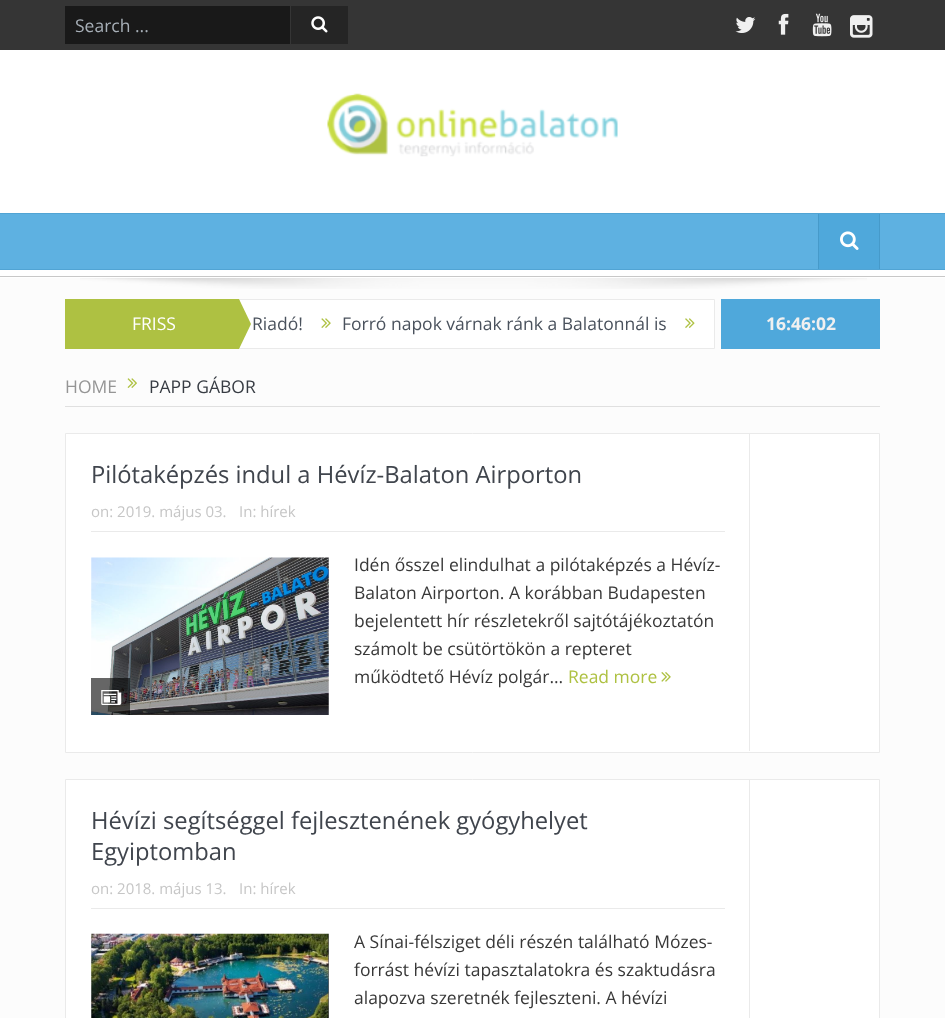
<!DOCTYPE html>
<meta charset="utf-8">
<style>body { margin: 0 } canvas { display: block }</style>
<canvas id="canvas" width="945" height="1018"></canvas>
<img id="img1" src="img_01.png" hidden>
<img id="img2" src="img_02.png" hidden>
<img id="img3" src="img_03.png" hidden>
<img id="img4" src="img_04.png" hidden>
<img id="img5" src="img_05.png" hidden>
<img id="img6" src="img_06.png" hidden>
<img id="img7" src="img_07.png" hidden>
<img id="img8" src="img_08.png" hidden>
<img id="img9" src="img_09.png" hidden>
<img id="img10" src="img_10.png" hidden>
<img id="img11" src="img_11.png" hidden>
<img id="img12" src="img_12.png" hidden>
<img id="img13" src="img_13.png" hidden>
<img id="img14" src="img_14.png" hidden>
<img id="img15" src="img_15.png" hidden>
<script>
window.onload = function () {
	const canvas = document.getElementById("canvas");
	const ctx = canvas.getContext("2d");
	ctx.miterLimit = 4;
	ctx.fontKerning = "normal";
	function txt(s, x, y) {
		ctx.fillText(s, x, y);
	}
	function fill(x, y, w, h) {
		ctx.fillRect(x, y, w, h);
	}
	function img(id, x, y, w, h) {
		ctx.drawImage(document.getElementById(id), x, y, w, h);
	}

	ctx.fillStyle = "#FCFCFC";
	fill(0, 0, 945, 1018);
	ctx.fillStyle = "#353535";
	fill(0, 0, 945, 50);
	ctx.fillStyle = "#191919";
	fill(65, 6, 225, 38);
	ctx.fillStyle = "#252525";
	fill(291, 6, 57, 38);
	img("img1", 311, 16, 17, 17);
	img("img2", 735, 17, 21, 16);
	img("img3", 778, 13, 11, 22);
	img("img4", 812, 13, 20, 24);
	img("img5", 850, 15, 23, 23);
	ctx.fillStyle = "#FFFFFF";
	fill(0, 50, 945, 163);
	img("img6", 327, 93, 291, 64);
	fill(0, 270, 945, 8);
	ctx.fillStyle = "#51A4D4";
	fill(0, 213, 945, 1);
	ctx.fillStyle = "#C8C8C8";
	fill(0, 276, 945, 1);
	ctx.fillStyle = "#5EB1E1";
	fill(0, 214, 945, 55);
	ctx.fillStyle = "#51A4D4";
	fill(0, 269, 945, 1);
	ctx.fillStyle = "#4FA8DB";
	fill(819, 214, 60, 55);
	ctx.fillStyle = "#469ACA";
	fill(879, 214, 1, 55);
	fill(818, 214, 1, 55);
	img("img7", 840, 231, 19, 19);
	img("img8", 80, 278, 787, 11);
	ctx.fillStyle = "#AEC142";
	fill(65, 299, 174, 50);
	ctx.fillStyle = "#FFFFFF";
	ctx.beginPath();
	ctx.rect(239.5, 299.5, 475, 49);
	ctx.fill();
	ctx.strokeStyle = "#EAEAEA";
	ctx.stroke();
	ctx.fillStyle = "#AEC142";
	ctx.beginPath();
	ctx.moveTo(239, 349);
	ctx.lineTo(239, 299);
	ctx.lineTo(251, 324);
	ctx.closePath();
	ctx.fill();
	img("img9", 321, 318, 10, 10);
	img("img10", 685, 318, 10, 10);
	ctx.fillStyle = "#4FA8DB";
	fill(721, 299, 159, 50);
	ctx.fillStyle = "#E0E0E0";
	fill(65, 406, 815, 1);
	img("img11", 127, 378, 10, 10);
	ctx.fillStyle = "#FFFFFF";
	ctx.beginPath();
	ctx.rect(65.5, 433.5, 814, 319);
	ctx.fill();
	ctx.stroke();
	ctx.fillStyle = "#EAEAEA";
	fill(91, 531, 634, 1);
	img("img12", 91, 557, 238, 158);
	ctx.fillStyle = "rgba(0, 0, 0, 0.6)";
	fill(91, 678, 39, 37);
	img("img13", 101, 690, 21, 15);
	img("img14", 661, 672, 10, 10);
	ctx.fillStyle = "#EAEAEA";
	fill(749, 434, 1, 317);
	ctx.fillStyle = "#FFFFFF";
	ctx.beginPath();
	ctx.rect(65.5, 779.5, 814, 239);
	ctx.fill();
	ctx.stroke();
	ctx.fillStyle = "#EAEAEA";
	fill(91, 908, 634, 1);
	img("img15", 91, 933, 238, 85);
	fill(749, 780, 1, 238);
	ctx.font = "17.5px Open Sans";
	ctx.fillStyle = "#A7AFB7";
	txt("Search ...", 75, 32);
	ctx.fillStyle = "#FFFFFF";
	txt("FRISS", 132, 330);
	ctx.fillStyle = "#4A525D";
	txt("Riadó!", 252, 330);
	txt("Forró napok várnak ránk a Balatonnál is", 342, 330);
	ctx.font = "bold 17.5px Open Sans";
	ctx.fillStyle = "#F0F0F0";
	txt("16:46:02", 766, 330);
	ctx.font = "17.5px Open Sans";
	ctx.fillStyle = "#959595";
	txt("HOME", 65, 393);
	ctx.fillStyle = "#373C43";
	txt("PAPP GÁBOR", 149, 393);
	ctx.font = "23.75px Open Sans";
	ctx.fillStyle = "#40454D";
	txt("Pilótaképzés indul a Hévíz-Balaton Airporton", 91, 483);
	ctx.font = "15px Open Sans";
	ctx.fillStyle = "#C6C6C6";
	txt("on: 2019. május 03.", 91, 517);
	txt("In: hírek", 239, 517);
	ctx.font = "17.5px Open Sans";
	ctx.fillStyle = "#383838";
	txt("Idén ősszel elindulhat a pilótaképzés a Hévíz-", 354, 571);
	txt("Balaton Airporton. A korábban Budapesten", 354, 599);
	txt("bejelentett hír részletekről sajtótájékoztatón", 354, 627);
	txt("számolt be csütörtökön a repteret", 354, 655);
	txt("működtető Hévíz polgár...", 354, 683);
	ctx.fillStyle = "#AEC142";
	txt("Read more", 568, 683);
	ctx.font = "23.75px Open Sans";
	ctx.fillStyle = "#40454D";
	txt("Hévízi segítséggel fejlesztenének gyógyhelyet", 91, 829);
	txt("Egyiptomban", 91, 860);
	ctx.font = "15px Open Sans";
	ctx.fillStyle = "#C6C6C6";
	txt("on: 2018. május 13.", 91, 894);
	txt("In: hírek", 239, 894);
	ctx.font = "17.5px Open Sans";
	ctx.fillStyle = "#383838";
	txt("A Sínai-félsziget déli részén található Mózes-", 354, 948);
	txt("forrást hévízi tapasztalatokra és szaktudásra", 354, 976);
	txt("alapozva szeretnék fejleszteni. A hévízi", 354, 1004);
};
</script>
